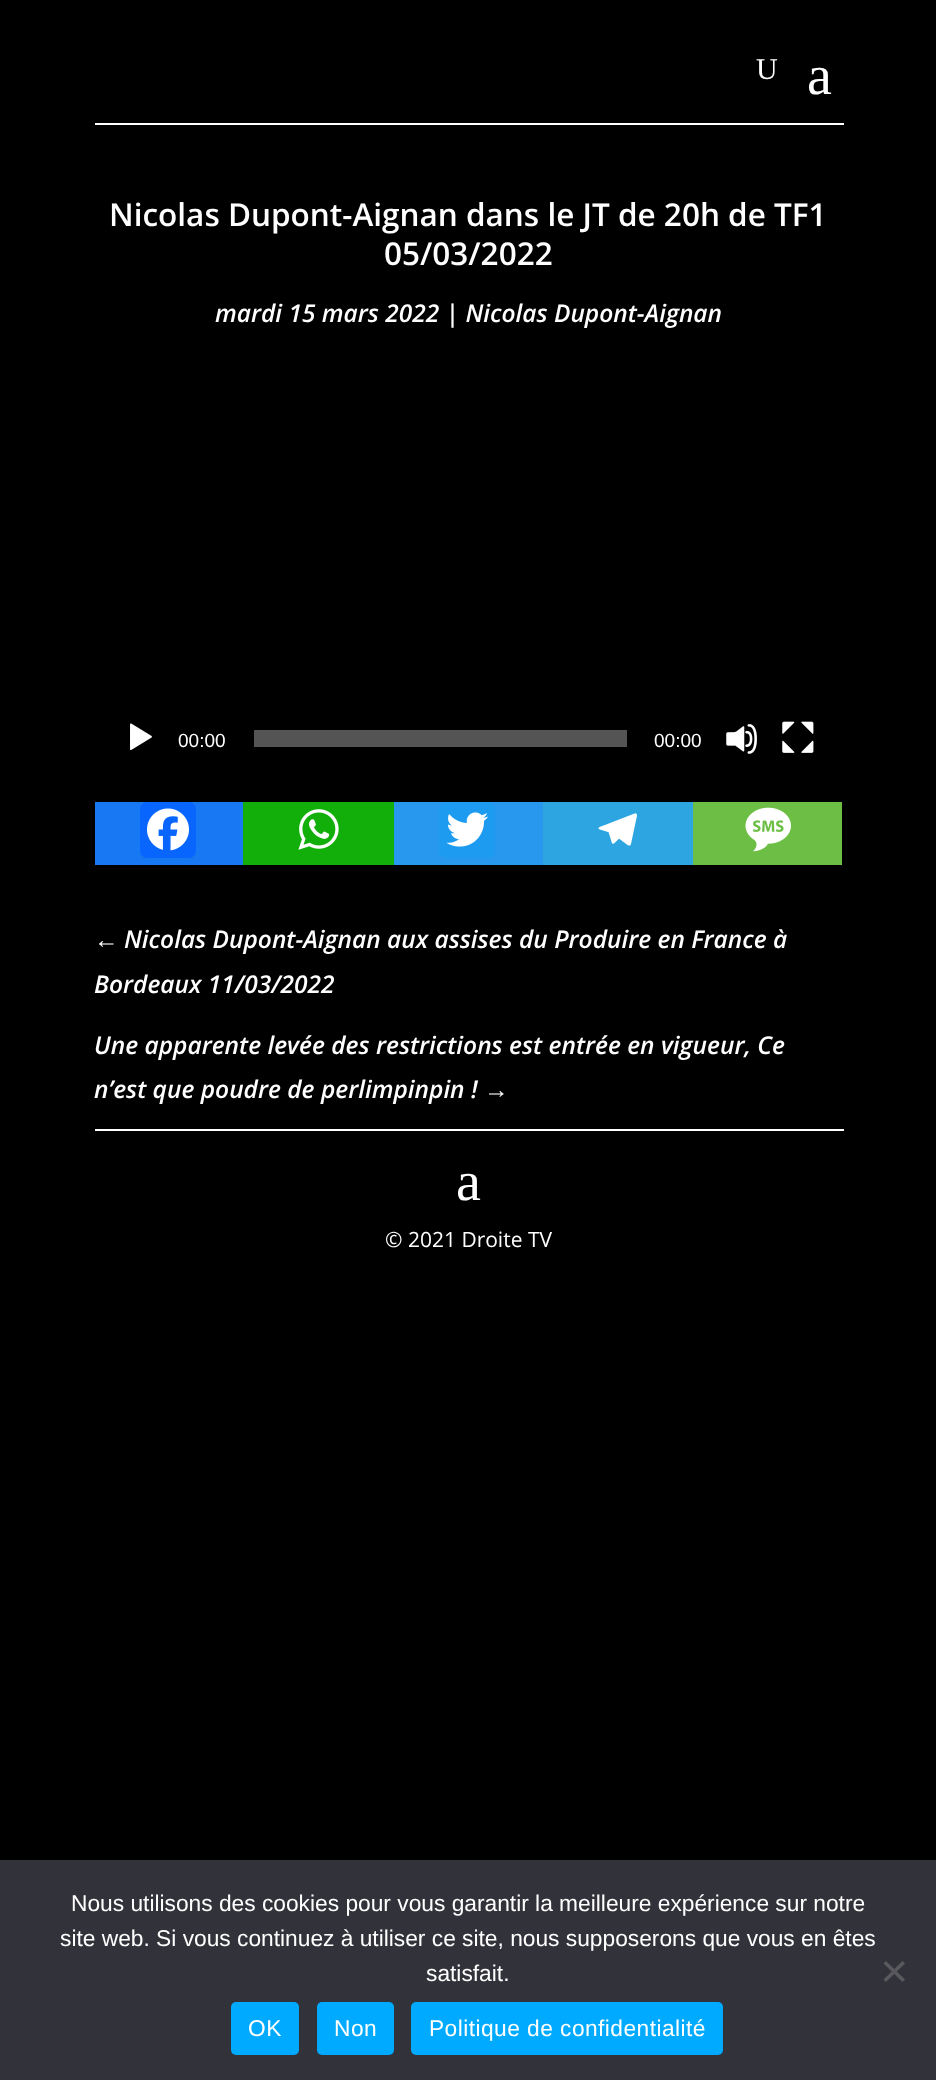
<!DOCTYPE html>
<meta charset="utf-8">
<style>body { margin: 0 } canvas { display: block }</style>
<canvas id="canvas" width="936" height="2080"></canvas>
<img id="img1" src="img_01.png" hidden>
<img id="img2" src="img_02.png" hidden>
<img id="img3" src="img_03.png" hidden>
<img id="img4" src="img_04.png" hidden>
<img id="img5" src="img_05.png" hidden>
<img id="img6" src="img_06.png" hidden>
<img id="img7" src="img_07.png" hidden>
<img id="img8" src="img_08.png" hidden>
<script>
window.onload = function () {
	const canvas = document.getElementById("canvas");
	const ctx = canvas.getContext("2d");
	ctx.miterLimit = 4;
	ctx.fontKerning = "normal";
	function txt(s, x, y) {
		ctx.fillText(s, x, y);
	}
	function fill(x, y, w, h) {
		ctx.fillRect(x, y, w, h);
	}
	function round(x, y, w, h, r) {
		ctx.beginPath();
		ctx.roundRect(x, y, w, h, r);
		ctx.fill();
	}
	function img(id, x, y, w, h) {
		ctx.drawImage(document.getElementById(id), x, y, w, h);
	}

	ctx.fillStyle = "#000000";
	fill(0, 0, 936, 2080);
	ctx.fillStyle = "#FFFFFF";
	fill(95, 123, 749, 2);
	img("img1", 130, 723, 22, 28);
	ctx.fillStyle = "#545454";
	fill(254, 730, 373, 17);
	img("img2", 726, 724, 31, 30);
	img("img3", 782, 721, 32, 32);
	ctx.fillStyle = "#1877F2";
	fill(95, 802, 148, 63);
	ctx.fillStyle = "#0866FF";
	round(140, 802, 56, 56, 7);
	img("img4", 147, 808, 42, 43);
	ctx.fillStyle = "#12AF0A";
	fill(243, 802, 151, 63);
	img("img5", 298, 809, 41, 41);
	ctx.fillStyle = "#2898EF";
	fill(394, 802, 149, 63);
	ctx.fillStyle = "#1D9BF0";
	round(439, 802, 56, 56, 7);
	img("img6", 446, 812, 43, 35);
	ctx.fillStyle = "#2CA5E0";
	fill(543, 802, 150, 63);
	img("img7", 598, 813, 39, 33);
	ctx.fillStyle = "#6CBE45";
	fill(693, 802, 149, 63);
	img("img8", 745, 807, 46, 45);
	ctx.fillStyle = "#FFFFFF";
	fill(95, 1129, 749, 2);
	ctx.fillStyle = "#32323A";
	fill(0, 1860, 936, 220);
	ctx.fillStyle = "#59595D";
	ctx.beginPath();
	ctx.moveTo(902.5, 1961);
	ctx.lineTo(905, 1963.5);
	ctx.lineTo(886, 1982);
	ctx.lineTo(883.5, 1979.5);
	ctx.closePath();
	ctx.fill();
	ctx.beginPath();
	ctx.moveTo(883.5, 1963.5);
	ctx.lineTo(886, 1961);
	ctx.lineTo(905, 1979.5);
	ctx.lineTo(902.5, 1982);
	ctx.closePath();
	ctx.fill();
	ctx.fillStyle = "#00AAFF";
	round(231, 2002, 68, 53, 5);
	round(317, 2002, 77, 53, 5);
	round(411, 2002, 312, 53, 5);
	ctx.font = "30px Liberation Serif";
	ctx.fillStyle = "#FFFFFF";
	txt("U", 756, 79);
	ctx.font = "56px Liberation Serif";
	txt("a", 807, 94);
	ctx.font = "600 31.5px Open Sans";
	txt("Nicolas Dupont-Aignan dans le JT de 20h de TF1", 109, 226);
	txt("05/03/2022", 384, 265);
	ctx.font = "italic 600 24.5px Open Sans";
	txt("mardi 15 mars 2022 | Nicolas Dupont-Aignan", 215, 322);
	ctx.font = "19px Liberation Sans";
	txt("00:00", 178, 747);
	txt("00:00", 654, 747);
	ctx.font = "italic bold 24.5px Liberation Sans";
	txt("←", 94, 948);
	ctx.font = "italic 600 24.5px Open Sans";
	txt("Nicolas Dupont-Aignan aux assises du Produire en France à", 124, 948);
	txt("Bordeaux 11/03/2022", 94, 993);
	txt("Une apparente levée des restrictions est entrée en vigueur, Ce", 94, 1054);
	txt("n’est que poudre de perlimpinpin !", 94, 1098);
	ctx.font = "italic bold 24.5px Liberation Sans";
	txt("→", 484, 1098);
	ctx.font = "56px Liberation Serif";
	txt("a", 456, 1200);
	ctx.font = "21px Open Sans";
	txt("© 2021 Droite TV", 385, 1247);
	ctx.font = "22.75px Liberation Sans";
	txt("Nous utilisons des cookies pour vous garantir la meilleure expérience sur notre", 71, 1911);
	txt("site web. Si vous continuez à utiliser ce site, nous supposerons que vous en êtes", 60, 1946);
	txt("satisfait.", 426, 1981);
	ctx.letterSpacing = "0.45px";
	txt("OK", 248, 2036);
	txt("Non", 334, 2036);
	txt("Politique de confidentialité", 429, 2036);
};
</script>
